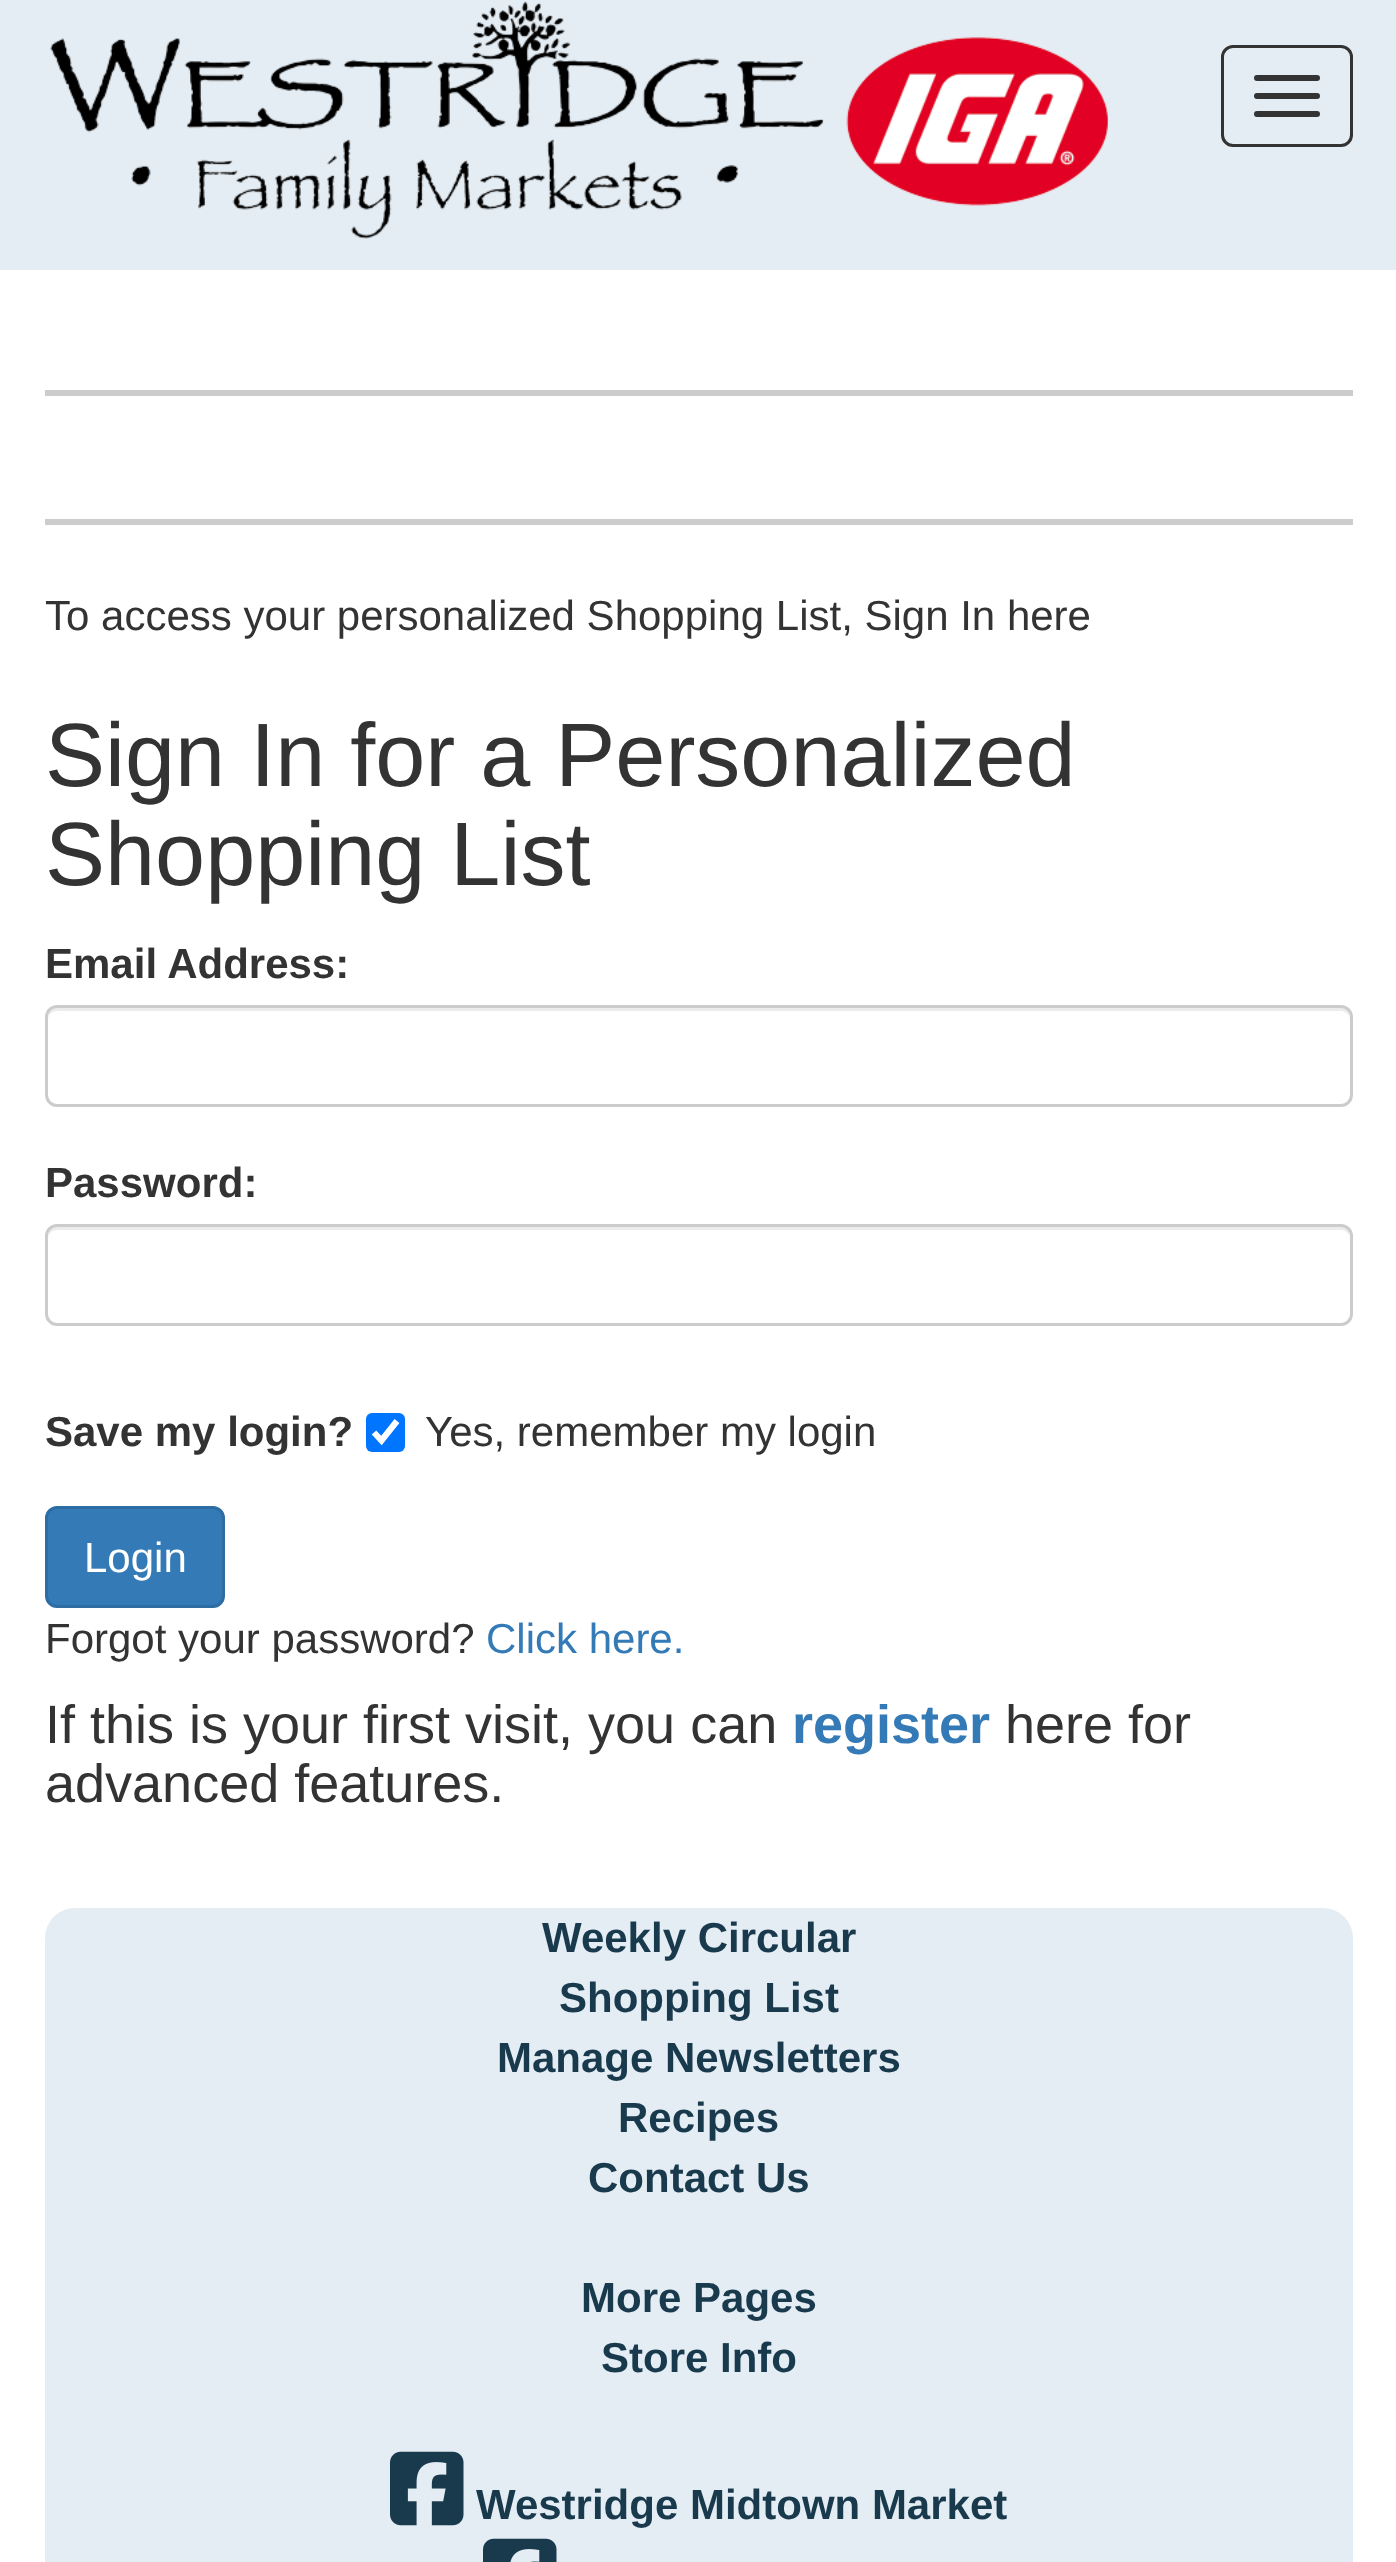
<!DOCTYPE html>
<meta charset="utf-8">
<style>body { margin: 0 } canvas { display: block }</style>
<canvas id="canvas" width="1396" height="2562"></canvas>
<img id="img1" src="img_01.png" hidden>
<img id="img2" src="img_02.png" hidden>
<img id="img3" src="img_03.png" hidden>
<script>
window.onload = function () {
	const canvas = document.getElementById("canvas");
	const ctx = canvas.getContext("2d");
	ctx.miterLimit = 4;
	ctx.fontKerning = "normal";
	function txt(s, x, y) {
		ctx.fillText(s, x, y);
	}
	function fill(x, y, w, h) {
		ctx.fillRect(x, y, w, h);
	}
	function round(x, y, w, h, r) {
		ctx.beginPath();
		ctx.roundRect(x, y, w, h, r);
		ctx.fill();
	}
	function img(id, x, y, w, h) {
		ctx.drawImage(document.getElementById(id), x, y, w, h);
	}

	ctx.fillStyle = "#FFFFFF";
	fill(0, 0, 1396, 2562);
	ctx.fillStyle = "#E4EDF4";
	fill(0, 0, 1396, 270);
	img("img1", 50, 1, 1059, 238);
	ctx.beginPath();
	ctx.roundRect(1222.5, 46.5, 129, 99, 10.5);
	ctx.strokeStyle = "#333333";
	ctx.lineWidth = 3;
	ctx.stroke();
	ctx.fillStyle = "#333333";
	round(1254, 75, 66, 6, 3);
	round(1254, 93, 66, 6, 3);
	round(1254, 111, 66, 6, 3);
	ctx.fillStyle = "#CCCCCC";
	fill(45, 390, 1308, 6);
	fill(45, 519, 1308, 6);
	ctx.fillStyle = "#ECECEC";
	ctx.beginPath();
	ctx.moveTo(57, 1011);
	ctx.lineTo(1341, 1011);
	ctx.bezierCurveTo(1346, 1011, 1350, 1015, 1350, 1020);
	ctx.bezierCurveTo(1350, 1014, 1348, 1008, 1341, 1008);
	ctx.lineTo(57, 1008);
	ctx.bezierCurveTo(50, 1008, 48, 1014, 48, 1020);
	ctx.bezierCurveTo(48, 1015, 52, 1011, 57, 1011);
	ctx.closePath();
	ctx.fill();
	ctx.beginPath();
	ctx.roundRect(46.5, 1006.5, 1305, 99, 10.5);
	ctx.strokeStyle = "#CCCCCC";
	ctx.stroke();
	ctx.beginPath();
	ctx.moveTo(57, 1230);
	ctx.lineTo(1341, 1230);
	ctx.bezierCurveTo(1346, 1230, 1350, 1234, 1350, 1239);
	ctx.bezierCurveTo(1350, 1233, 1348, 1227, 1341, 1227);
	ctx.lineTo(57, 1227);
	ctx.bezierCurveTo(50, 1227, 48, 1233, 48, 1239);
	ctx.bezierCurveTo(48, 1234, 52, 1230, 57, 1230);
	ctx.closePath();
	ctx.fill();
	ctx.beginPath();
	ctx.roundRect(46.5, 1225.5, 1305, 99, 10.5);
	ctx.stroke();
	ctx.fillStyle = "#0075FF";
	round(366, 1413, 39, 39, 6);
	ctx.beginPath();
	ctx.moveTo(374, 1432.5);
	ctx.lineTo(381.5, 1440.5);
	ctx.lineTo(397, 1421);
	ctx.strokeStyle = "#FFFFFF";
	ctx.lineWidth = 6.2;
	ctx.stroke();
	ctx.fillStyle = "#337AB7";
	ctx.beginPath();
	ctx.roundRect(46.5, 1507.5, 177, 99, 10.5);
	ctx.fill();
	ctx.strokeStyle = "#2E6DA4";
	ctx.lineWidth = 3;
	ctx.stroke();
	ctx.fillStyle = "#E4EDF4";
	round(45, 1908, 1308, 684, 30);
	img("img2", 390, 2451, 74, 75);
	img("img3", 483, 2538, 74, 24);
	ctx.font = "42px Liberation Sans";
	ctx.fillStyle = "#333333";
	txt("To access your personalized Shopping List, Sign In here", 45, 630);
	ctx.font = "90px Liberation Sans";
	txt("Sign In for a Personalized", 45, 786);
	txt("Shopping List", 45, 885);
	ctx.font = "bold 42px Liberation Sans";
	txt("Email Address:", 45, 978);
	txt("Password:", 45, 1197);
	txt("Save my login?", 45, 1446);
	ctx.font = "42px Liberation Sans";
	txt("Yes, remember my login", 425, 1446);
	ctx.fillStyle = "#FFFFFF";
	txt("Login", 84, 1572);
	ctx.fillStyle = "#333333";
	txt("Forgot your password?", 45, 1653);
	ctx.fillStyle = "#337AB7";
	txt("Click here.", 486, 1653);
	ctx.font = "54px Liberation Sans";
	ctx.fillStyle = "#333333";
	txt("If this is your first visit, you can", 45, 1743);
	ctx.font = "bold 54px Liberation Sans";
	ctx.fillStyle = "#337AB7";
	txt("register", 792, 1743);
	ctx.font = "54px Liberation Sans";
	ctx.fillStyle = "#333333";
	txt("here for", 1005, 1743);
	txt("advanced features.", 45, 1802);
	ctx.font = "bold 42px Liberation Sans";
	ctx.fillStyle = "#193A4D";
	txt("Weekly Circular", 542, 1952);
	txt("Shopping List", 559, 2012);
	txt("Manage Newsletters", 497, 2072);
	txt("Recipes", 618, 2132);
	txt("Contact Us", 588, 2192);
	txt("More Pages", 581, 2312);
	txt("Store Info", 601, 2372);
	txt("Westridge Midtown Market", 476, 2519);
};
</script>
